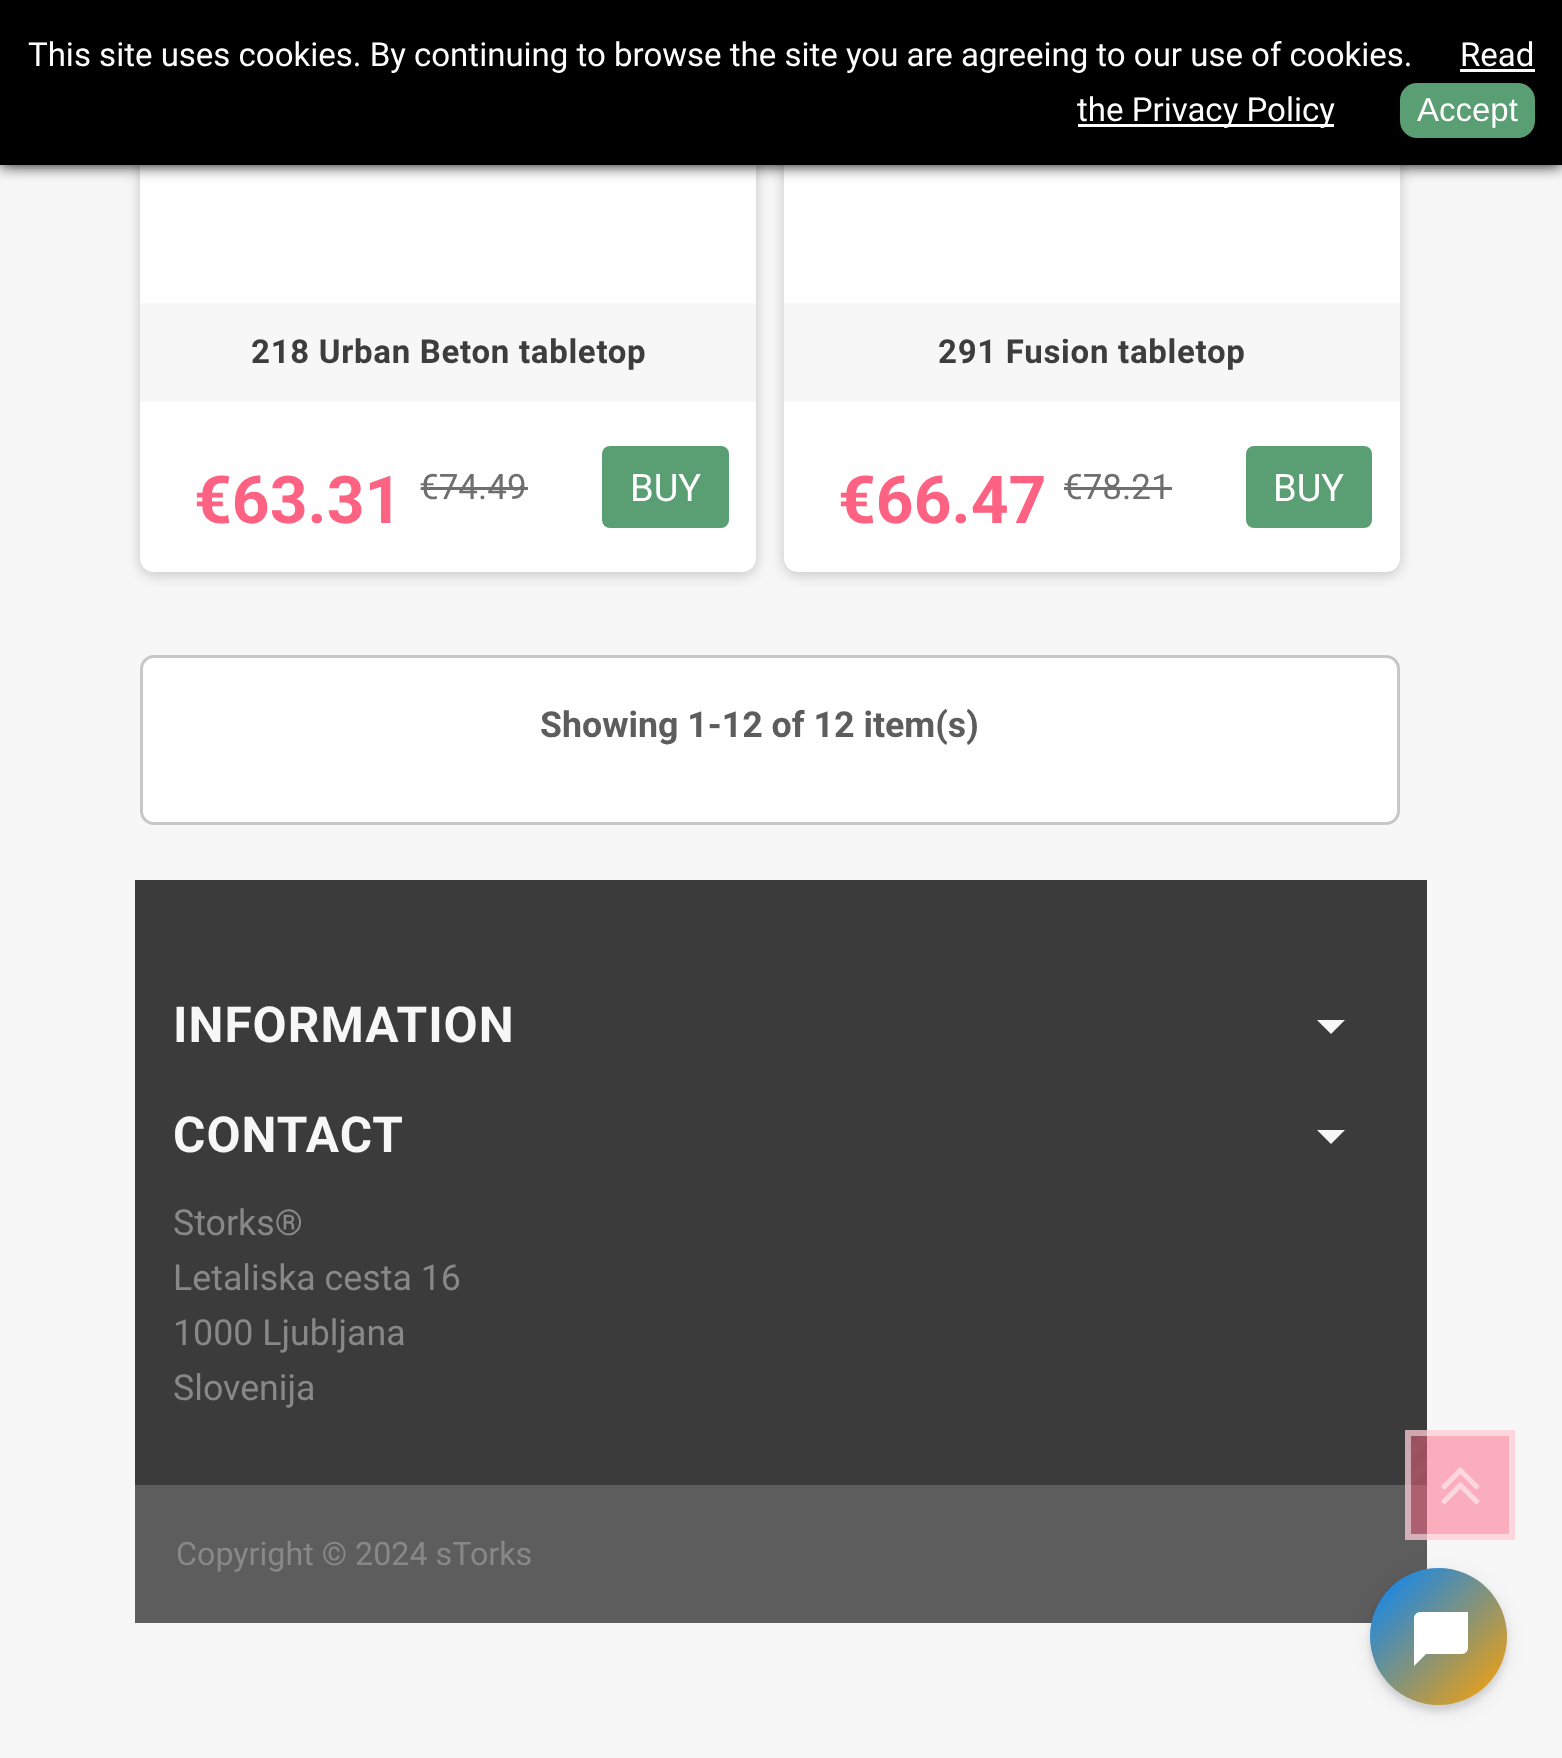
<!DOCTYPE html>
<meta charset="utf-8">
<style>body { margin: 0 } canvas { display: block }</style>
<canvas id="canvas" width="1562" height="1758"></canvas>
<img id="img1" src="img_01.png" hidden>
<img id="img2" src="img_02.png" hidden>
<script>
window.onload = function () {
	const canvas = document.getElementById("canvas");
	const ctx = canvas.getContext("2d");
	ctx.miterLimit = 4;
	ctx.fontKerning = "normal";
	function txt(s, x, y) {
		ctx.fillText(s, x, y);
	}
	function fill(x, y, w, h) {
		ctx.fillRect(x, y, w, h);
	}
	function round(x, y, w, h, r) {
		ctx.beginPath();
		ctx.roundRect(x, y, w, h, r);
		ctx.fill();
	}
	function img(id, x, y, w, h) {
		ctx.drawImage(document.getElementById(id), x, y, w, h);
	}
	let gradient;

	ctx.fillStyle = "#F7F7F7";
	fill(0, 0, 1562, 1758);
	ctx.fillStyle = "#FAADBD";
	fill(1427, 1430, 88, 110);
	ctx.fillStyle = "rgba(0, 0, 0, 0.2)";
	ctx.filter = "blur(7px)";
	ctx.beginPath();
	ctx.roundRect(140, -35, 616, 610, 14);
	ctx.fill();
	ctx.filter = "none";
	ctx.fillStyle = "#FFFFFF";
	round(140, -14, 616, 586, 14);
	ctx.fillStyle = "rgba(0, 0, 0, 0.2)";
	ctx.filter = "blur(7px)";
	ctx.beginPath();
	ctx.roundRect(784, -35, 616, 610, 14);
	ctx.fill();
	ctx.filter = "none";
	ctx.fillStyle = "#FFFFFF";
	round(784, -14, 616, 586, 14);
	ctx.fillStyle = "#000000";
	ctx.filter = "blur(8px)";
	ctx.beginPath();
	ctx.rect(0, 0, 1562, 165);
	ctx.fill();
	ctx.filter = "none";
	fill(0, 0, 1562, 165);
	ctx.fillStyle = "#FFFFFF";
	fill(1460, 69, 75, 3);
	fill(1078, 124, 256, 3);
	ctx.fillStyle = "#5A9E74";
	round(1400, 83, 135, 55, 17);
	ctx.fillStyle = "#F7F7F7";
	fill(140, 303, 616, 99);
	ctx.fillStyle = "#6F6F6F";
	fill(421, 487, 107, 3);
	ctx.fillStyle = "#5A9E74";
	round(602, 446, 127, 82, 8);
	ctx.fillStyle = "#F7F7F7";
	fill(784, 303, 616, 99);
	ctx.fillStyle = "#6F6F6F";
	fill(1064, 487, 108, 3);
	ctx.fillStyle = "#5A9E74";
	round(1246, 446, 126, 82, 8);
	ctx.fillStyle = "#FFFFFF";
	ctx.beginPath();
	ctx.roundRect(141.5, 656.5, 1257, 167, 12.5);
	ctx.fill();
	ctx.strokeStyle = "#C7C7C7";
	ctx.lineWidth = 3;
	ctx.stroke();
	ctx.fillStyle = "#3B3B3B";
	fill(135, 880, 1292, 605);
	ctx.fillStyle = "#9C4F5F";
	fill(1405, 1430, 22, 55);
	ctx.fillStyle = "#F7F7F7";
	ctx.beginPath();
	ctx.moveTo(1317, 1020);
	ctx.lineTo(1345, 1020);
	ctx.lineTo(1331, 1034);
	ctx.closePath();
	ctx.fill();
	ctx.beginPath();
	ctx.moveTo(1317, 1130);
	ctx.lineTo(1345, 1130);
	ctx.lineTo(1331, 1144);
	ctx.closePath();
	ctx.fill();
	ctx.fillStyle = "#5D5D5D";
	fill(135, 1485, 1292, 138);
	ctx.fillStyle = "rgba(8, 15, 26, 0.12)";
	ctx.filter = "blur(3px)";
	ctx.beginPath();
	ctx.roundRect(1370, 1573, 137, 138, 68.5);
	ctx.fill();
	ctx.filter = "none";
	ctx.fillStyle = "#AD6070";
	fill(1405, 1485, 22, 55);
	img("img1", 1406, 1430, 21, 55);
	ctx.strokeStyle = "rgba(255, 255, 255, 0.5)";
	ctx.lineWidth = 6;
	ctx.strokeRect(1408, 1433, 104, 104);
	ctx.fillStyle = "rgba(8, 15, 26, 0.08)";
	ctx.filter = "blur(11px)";
	ctx.beginPath();
	ctx.roundRect(1370, 1573, 137, 138, 68.5);
	ctx.fill();
	ctx.filter = "none";
	gradient = ctx.createLinearGradient(1370, 1568, 1507, 1705);
	gradient.addColorStop(0, "#0084FF");
	gradient.addColorStop(1, "#FFA200");
	ctx.fillStyle = gradient;
	ctx.beginPath();
	ctx.arc(1438.5, 1636.5, 68.5, 0, Math.PI * 2);
	ctx.fill();
	ctx.fillStyle = "#FFFFFF";
	ctx.beginPath();
	ctx.moveTo(1468, 1648);
	ctx.bezierCurveTo(1468, 1651, 1465, 1654, 1462, 1654);
	ctx.lineTo(1426, 1654);
	ctx.lineTo(1414, 1666);
	ctx.lineTo(1414, 1618);
	ctx.bezierCurveTo(1414, 1615, 1417, 1612, 1420, 1612);
	ctx.lineTo(1468, 1612);
	ctx.fill();
	img("img2", 1441, 1467, 39, 38);
	ctx.font = "33px Roboto";
	txt("This site uses cookies. By continuing to browse the site you are agreeing to our use of cookies.", 28, 66);
	txt("Read", 1460, 66);
	txt("the Privacy Policy", 1077, 121);
	ctx.font = "33px Liberation Sans";
	txt("Accept", 1417, 121);
	ctx.letterSpacing = "0.7px";
	ctx.font = "bold 33px Roboto";
	ctx.fillStyle = "#3D3D3D";
	txt("218 Urban Beton tabletop", 251, 363);
	ctx.letterSpacing = "0px";
	ctx.font = "bold 66px 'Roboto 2'";
	ctx.fillStyle = "#FD6282";
	txt("€63.31", 194, 523);
	ctx.font = "35px Roboto";
	ctx.fillStyle = "#6F6F6F";
	txt("€74.49", 419, 499);
	ctx.font = "38px Roboto";
	ctx.fillStyle = "#FFFFFF";
	txt("BUY", 630, 501);
	ctx.letterSpacing = "0.7px";
	ctx.font = "bold 33px Roboto";
	ctx.fillStyle = "#3D3D3D";
	txt("291 Fusion tabletop", 938, 363);
	ctx.letterSpacing = "0px";
	ctx.font = "bold 66px 'Roboto 2'";
	ctx.fillStyle = "#FD6282";
	txt("€66.47", 838, 523);
	ctx.font = "35px Roboto";
	ctx.fillStyle = "#6F6F6F";
	txt("€78.21", 1063, 499);
	ctx.font = "38px Roboto";
	ctx.fillStyle = "#FFFFFF";
	txt("BUY", 1273, 501);
	ctx.font = "bold 35.75px Roboto";
	ctx.fillStyle = "#5D5D5D";
	txt("Showing 1-12 of 12 item(s)", 540, 737);
	ctx.letterSpacing = "1px";
	ctx.font = "bold 49.5px 'Roboto 2'";
	ctx.fillStyle = "#F7F7F7";
	txt("INFORMATION", 173, 1042);
	txt("CONTACT", 173, 1152);
	ctx.letterSpacing = "0px";
	ctx.font = "35.75px Roboto";
	ctx.fillStyle = "#888888";
	txt("Storks®", 173, 1235);
	txt("Letaliska cesta 16", 173, 1290);
	txt("1000 Ljubljana", 173, 1345);
	txt("Slovenija", 173, 1400);
	ctx.font = "32.25px Roboto";
	txt("Copyright © 2024 sTorks", 176, 1565);
};
</script>
